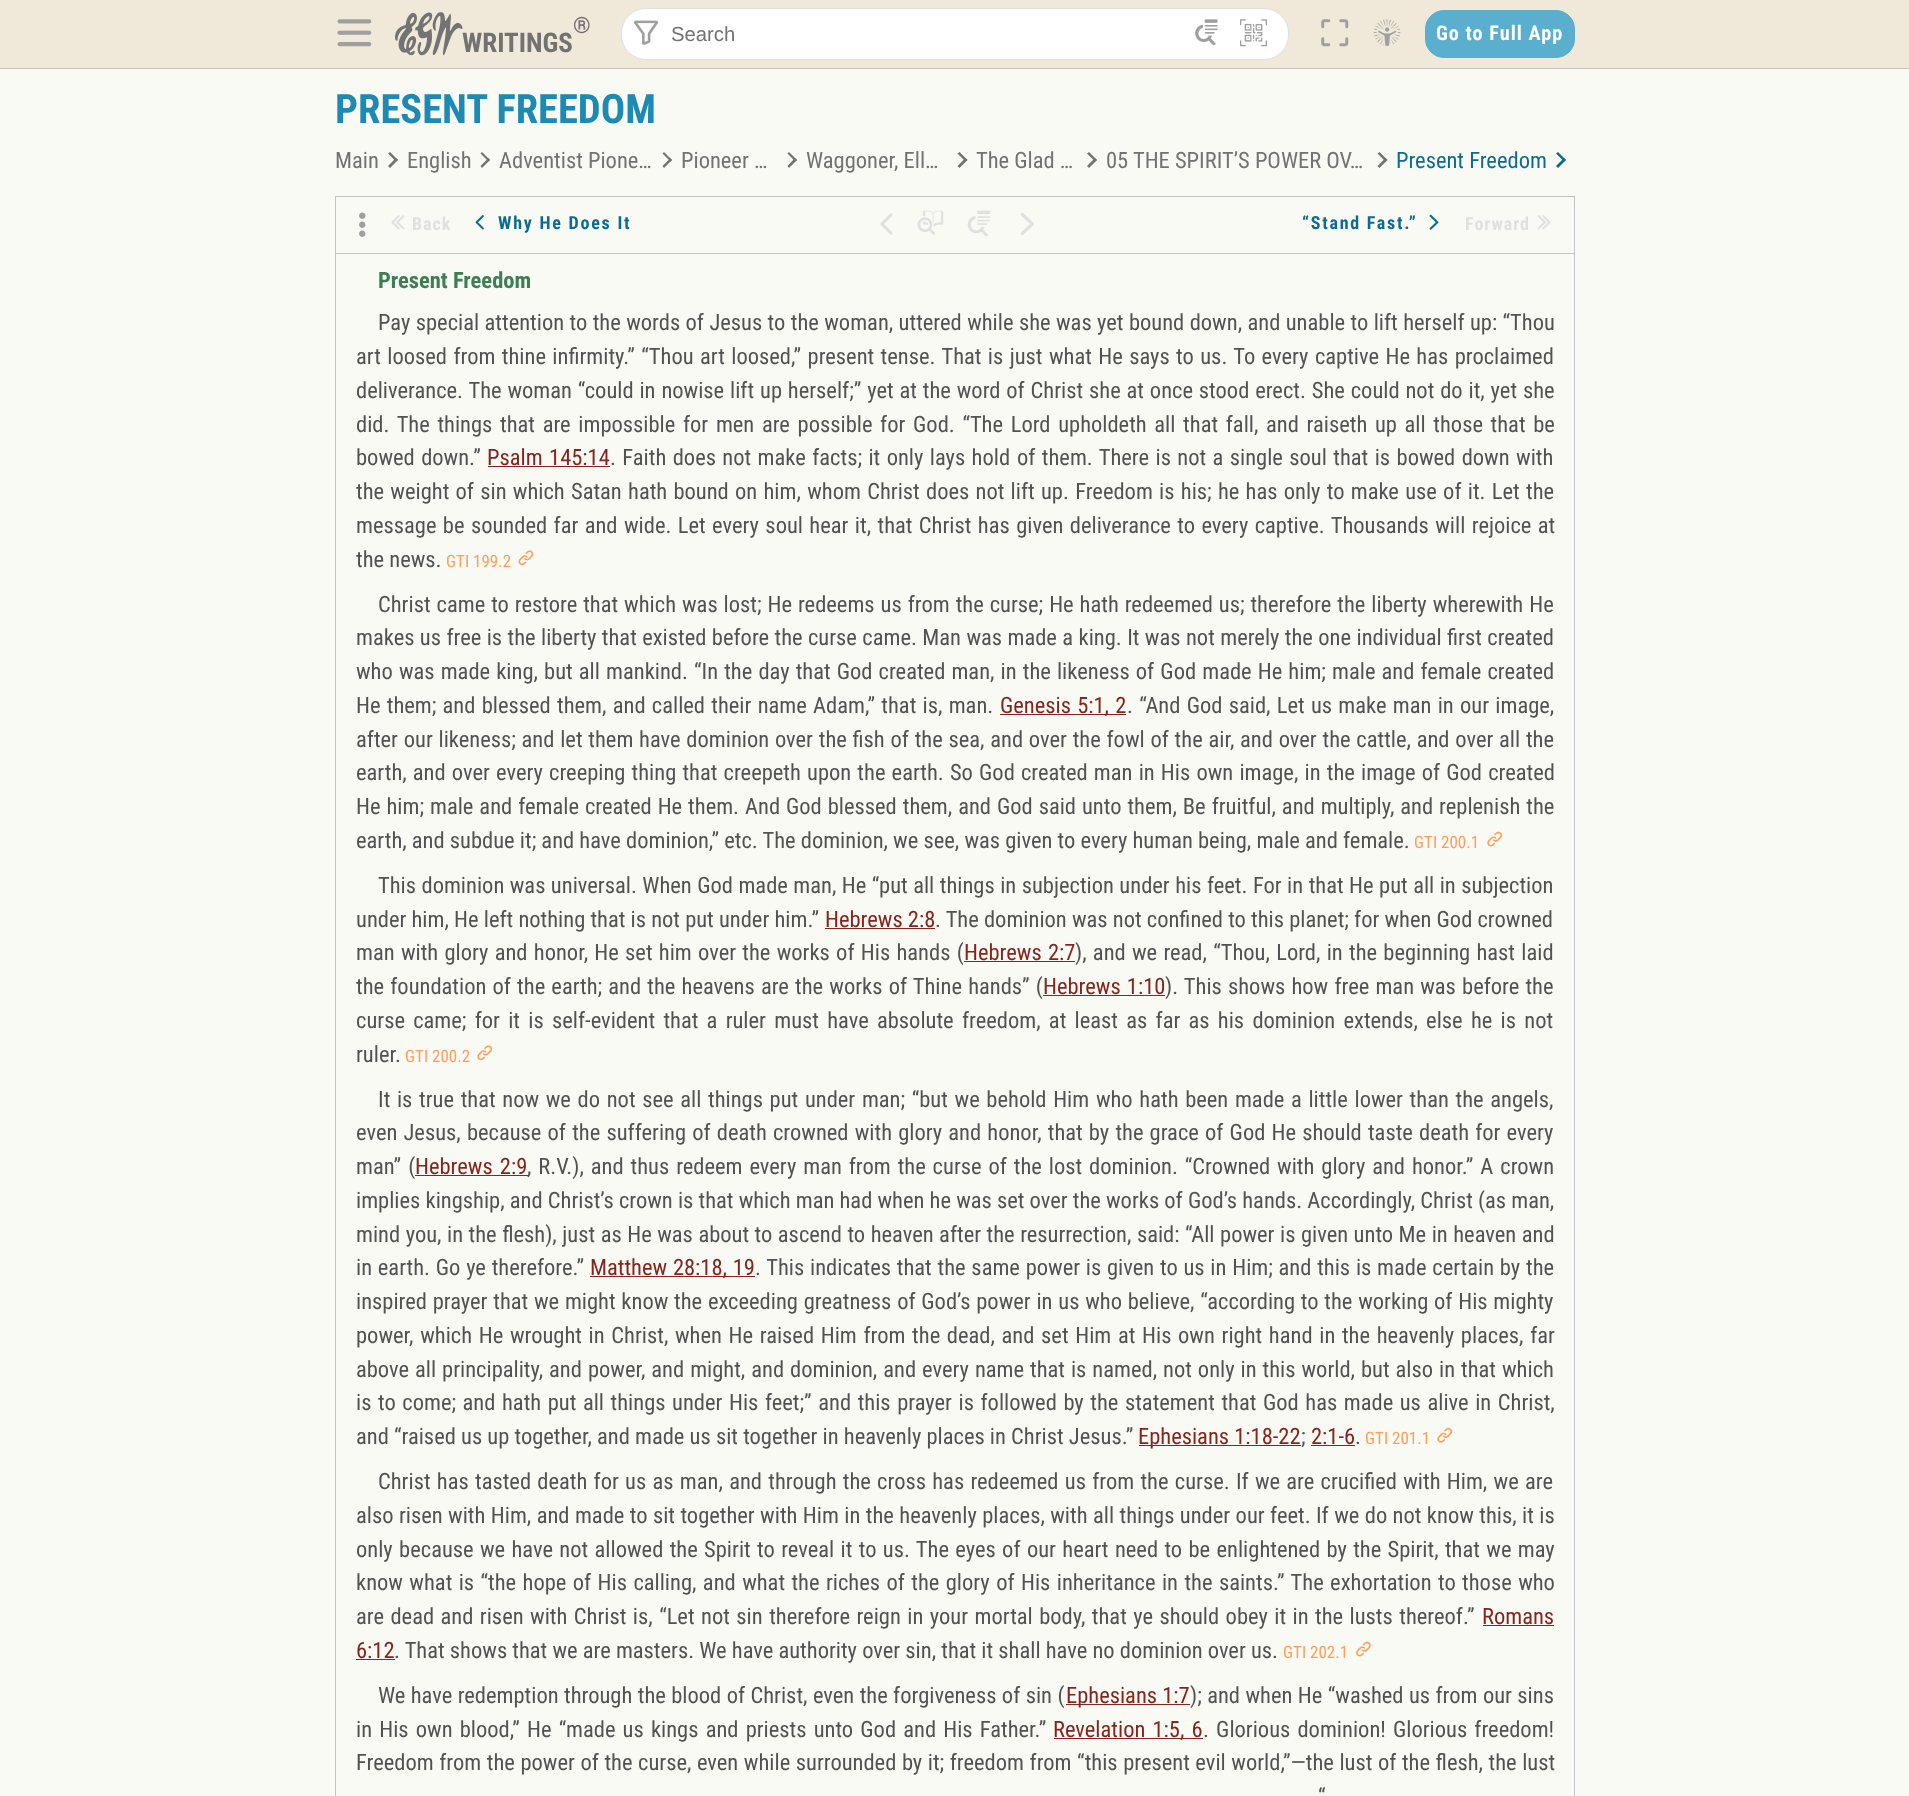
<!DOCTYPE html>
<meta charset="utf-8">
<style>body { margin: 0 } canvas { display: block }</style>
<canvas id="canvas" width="1909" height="1796"></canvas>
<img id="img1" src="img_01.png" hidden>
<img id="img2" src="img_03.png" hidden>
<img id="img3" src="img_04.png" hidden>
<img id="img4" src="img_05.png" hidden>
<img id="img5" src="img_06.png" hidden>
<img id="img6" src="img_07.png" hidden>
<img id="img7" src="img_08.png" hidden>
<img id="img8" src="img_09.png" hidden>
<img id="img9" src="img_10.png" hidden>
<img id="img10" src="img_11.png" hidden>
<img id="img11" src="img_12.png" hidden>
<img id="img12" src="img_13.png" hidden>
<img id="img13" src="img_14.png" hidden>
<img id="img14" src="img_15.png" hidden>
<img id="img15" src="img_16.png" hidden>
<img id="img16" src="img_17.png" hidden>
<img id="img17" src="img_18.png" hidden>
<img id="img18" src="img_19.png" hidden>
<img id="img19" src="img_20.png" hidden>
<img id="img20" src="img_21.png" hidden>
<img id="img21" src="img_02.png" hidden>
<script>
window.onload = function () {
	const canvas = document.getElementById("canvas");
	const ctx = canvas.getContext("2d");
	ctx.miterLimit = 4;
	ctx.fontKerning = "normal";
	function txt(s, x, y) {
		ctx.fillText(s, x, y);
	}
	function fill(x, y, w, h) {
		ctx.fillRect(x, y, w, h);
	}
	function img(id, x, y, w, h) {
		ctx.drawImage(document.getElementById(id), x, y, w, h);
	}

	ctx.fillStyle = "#FAFAF5";
	fill(0, 0, 1909, 1796);
	ctx.fillStyle = "#F0E8D9";
	fill(0, 0, 1909, 68);
	ctx.fillStyle = "#C4C4C4";
	fill(0, 68, 1909, 1);
	img("img1", 337, 19, 35, 28);
	ctx.fillStyle = "#FFFFFF";
	ctx.beginPath();
	ctx.roundRect(621.5, 8.5, 667, 51, 24.5);
	ctx.fill();
	ctx.strokeStyle = "#E0E0E0";
	ctx.stroke();
	img("img2", 633, 20, 26, 25);
	img("img3", 1195, 19, 23, 27);
	img("img4", 1240, 19, 27, 28);
	img("img5", 1321, 19, 28, 28);
	img("img6", 1373, 19, 28, 27);
	ctx.fillStyle = "#5AAECE";
	ctx.beginPath();
	ctx.roundRect(1425.5, 10.5, 149, 47, 18.5);
	ctx.fill();
	ctx.strokeStyle = "#5AAECE";
	ctx.stroke();
	ctx.fillStyle = "#727272";
	ctx.beginPath();
	ctx.moveTo(388, 153.5);
	ctx.lineTo(390, 152);
	ctx.lineTo(398, 160);
	ctx.lineTo(396, 161.5);
	ctx.closePath();
	ctx.fill();
	ctx.beginPath();
	ctx.moveTo(388, 166);
	ctx.lineTo(396, 158);
	ctx.lineTo(398, 160);
	ctx.lineTo(390, 168);
	ctx.closePath();
	ctx.fill();
	ctx.beginPath();
	ctx.moveTo(480.5, 153.5);
	ctx.lineTo(482, 152);
	ctx.lineTo(490, 160);
	ctx.lineTo(488.5, 161.5);
	ctx.closePath();
	ctx.fill();
	ctx.beginPath();
	ctx.moveTo(480.5, 166);
	ctx.lineTo(488.5, 158);
	ctx.lineTo(490, 160);
	ctx.lineTo(482, 168);
	ctx.closePath();
	ctx.fill();
	ctx.beginPath();
	ctx.moveTo(662.5, 153.5);
	ctx.lineTo(664, 152);
	ctx.lineTo(672, 160);
	ctx.lineTo(670.5, 161.5);
	ctx.closePath();
	ctx.fill();
	ctx.beginPath();
	ctx.moveTo(662.5, 166);
	ctx.lineTo(670.5, 158);
	ctx.lineTo(672, 160);
	ctx.lineTo(664, 168);
	ctx.closePath();
	ctx.fill();
	ctx.beginPath();
	ctx.moveTo(787.5, 153.5);
	ctx.lineTo(789, 152);
	ctx.lineTo(797, 160);
	ctx.lineTo(795, 161.5);
	ctx.closePath();
	ctx.fill();
	ctx.beginPath();
	ctx.moveTo(787.5, 166);
	ctx.lineTo(795, 158);
	ctx.lineTo(797, 160);
	ctx.lineTo(789, 168);
	ctx.closePath();
	ctx.fill();
	ctx.beginPath();
	ctx.moveTo(957.5, 153.5);
	ctx.lineTo(959.5, 152);
	ctx.lineTo(967.5, 160);
	ctx.lineTo(965.5, 161.5);
	ctx.closePath();
	ctx.fill();
	ctx.beginPath();
	ctx.moveTo(957.5, 166);
	ctx.lineTo(965.5, 158);
	ctx.lineTo(967.5, 160);
	ctx.lineTo(959.5, 168);
	ctx.closePath();
	ctx.fill();
	ctx.beginPath();
	ctx.moveTo(1087, 153.5);
	ctx.lineTo(1089, 152);
	ctx.lineTo(1097, 160);
	ctx.lineTo(1095, 161.5);
	ctx.closePath();
	ctx.fill();
	ctx.beginPath();
	ctx.moveTo(1087, 166);
	ctx.lineTo(1095, 158);
	ctx.lineTo(1097, 160);
	ctx.lineTo(1089, 168);
	ctx.closePath();
	ctx.fill();
	ctx.beginPath();
	ctx.moveTo(1377.5, 153.5);
	ctx.lineTo(1379.5, 152);
	ctx.lineTo(1387.5, 160);
	ctx.lineTo(1385.5, 161.5);
	ctx.closePath();
	ctx.fill();
	ctx.beginPath();
	ctx.moveTo(1377.5, 166);
	ctx.lineTo(1385.5, 158);
	ctx.lineTo(1387.5, 160);
	ctx.lineTo(1379.5, 168);
	ctx.closePath();
	ctx.fill();
	ctx.fillStyle = "#0C6B8F";
	ctx.beginPath();
	ctx.moveTo(1556, 153.5);
	ctx.lineTo(1558, 152);
	ctx.lineTo(1566, 160);
	ctx.lineTo(1564, 161.5);
	ctx.closePath();
	ctx.fill();
	ctx.beginPath();
	ctx.moveTo(1556, 166);
	ctx.lineTo(1564, 158);
	ctx.lineTo(1566, 160);
	ctx.lineTo(1558, 168);
	ctx.closePath();
	ctx.fill();
	ctx.strokeStyle = "#C4C4C4";
	ctx.strokeRect(335.5, 196.5, 1239, 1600);
	ctx.fillStyle = "#C4C4C4";
	fill(336, 253, 1238, 1);
	img("img7", 359, 212, 7, 25);
	img("img8", 391, 215, 14, 15);
	img("img9", 475, 215, 9, 15);
	img("img10", 880, 213, 13, 22);
	img("img11", 917, 210, 27, 25);
	img("img12", 967, 210, 24, 27);
	img("img13", 1020, 212, 14, 24);
	img("img14", 1429, 214, 10, 16);
	img("img15", 1537, 215, 14, 15);
	ctx.fillStyle = "#85241E";
	fill(488, 466, 122, 1);
	img("img16", 518, 550, 16, 16);
	fill(1000, 714, 126, 1);
	img("img17", 1487, 831, 15, 16);
	fill(825, 928, 110, 1);
	fill(964, 961, 111, 1);
	fill(1043, 995, 122, 1);
	img("img18", 477, 1045, 15, 16);
	fill(415, 1175, 113, 1);
	fill(590, 1276, 165, 1);
	fill(1139, 1445, 162, 1);
	fill(1311, 1445, 44, 1);
	img("img19", 1437, 1427, 15, 16);
	fill(1483, 1625, 71, 1);
	fill(356, 1659, 39, 1);
	img("img20", 1356, 1641, 15, 16);
	fill(1066, 1704, 124, 1);
	fill(1054, 1738, 149, 1);
	ctx.font = "bold 22.5px Roboto Condensed";
	ctx.fillStyle = "#727272";
	txt("®", 573, 33);
	ctx.font = "bold 27px Roboto Condensed";
	txt("WRITINGS", 462, 52);
	img("img21", 395, 12, 68, 44);
	ctx.font = "20.25px Liberation Sans";
	txt("Search", 671, 41);
	ctx.letterSpacing = "1px";
	ctx.font = "bold 20.25px Roboto Condensed";
	ctx.fillStyle = "#FFFFFF";
	txt("Go to Full App", 1436, 40);
	ctx.letterSpacing = "0px";
	ctx.font = "bold 40.5px Roboto Condensed";
	ctx.fillStyle = "#1C8AB3";
	txt("PRESENT FREEDOM", 335, 123);
	ctx.font = "22.5px Roboto Condensed";
	ctx.fillStyle = "#727272";
	txt("Main", 335, 168);
	txt("English", 407, 168);
	txt("Adventist Pione…", 499, 168);
	txt("Pioneer …", 681, 168);
	txt("Waggoner, Ell…", 806, 168);
	txt("The Glad …", 976, 168);
	txt("05 THE SPIRIT’S POWER OV…", 1106, 168);
	ctx.fillStyle = "#0C6B8F";
	txt("Present Freedom", 1396, 168);
	ctx.letterSpacing = "1px";
	ctx.font = "bold 18px Roboto Condensed";
	ctx.fillStyle = "#E0E0E0";
	txt("Back", 412, 230);
	ctx.letterSpacing = "1.75px";
	ctx.fillStyle = "#0C6B8F";
	txt("Why He Does It", 498, 229);
	txt("“Stand Fast.”", 1302, 229);
	ctx.letterSpacing = "1px";
	ctx.fillStyle = "#E0E0E0";
	txt("Forward", 1465, 230);
	ctx.letterSpacing = "0px";
	ctx.font = "bold 22.5px Roboto Condensed";
	ctx.fillStyle = "#3D7E57";
	txt("Present Freedom", 378, 288);
	ctx.wordSpacing = "0.25px";
	ctx.font = "22.5px Roboto Condensed";
	ctx.fillStyle = "#525252";
	txt("Pay special attention to the words of Jesus to the woman, uttered while she was yet bound down, and unable to lift herself up: “Thou", 378, 330);
	ctx.wordSpacing = "1.25px";
	txt("art loosed from thine infirmity.” “Thou art loosed,” present tense. That is just what He says to us. To every captive He has proclaimed", 356, 364);
	ctx.wordSpacing = "0.7px";
	txt("deliverance. The woman “could in nowise lift up herself;” yet at the word of Christ she at once stood erect. She could not do it, yet she", 356, 398);
	ctx.wordSpacing = "2.5px";
	txt("did. The things that are impossible for men are possible for God. “The Lord upholdeth all that fall, and raiseth up all those that be", 356, 432);
	ctx.wordSpacing = "1.25px";
	txt("bowed down.”", 356, 465);
	ctx.fillStyle = "#85241E";
	txt("Psalm 145:14", 487, 465);
	ctx.fillStyle = "#525252";
	txt(". Faith does not make facts; it only lays hold", 610, 465);
	txt("of them. There is not a single soul that is bowed down with", 1017, 465);
	ctx.wordSpacing = "1.1px";
	txt("the weight of sin which Satan hath bound on him, whom Christ does not lift up. Freedom is his; he has only to make use of it. Let the", 356, 499);
	ctx.wordSpacing = "1.25px";
	txt("message be sounded far and wide. Let every soul hear it, that Christ has given deliverance to every captive. Thousands will rejoice at", 356, 533);
	ctx.wordSpacing = "0px";
	txt("the news.", 356, 567);
	ctx.font = "17px Roboto Condensed";
	ctx.fillStyle = "#FF9D5B";
	txt("GTI 199.2", 446, 567);
	ctx.wordSpacing = "0.8px";
	ctx.font = "22.5px Roboto Condensed";
	ctx.fillStyle = "#525252";
	txt("Christ came to restore that which was lost; He redeems us from the curse; He hath redeemed us; therefore the liberty wherewith He", 378, 612);
	ctx.wordSpacing = "0.25px";
	txt("makes us free is the liberty that existed before the curse came. Man was made a king. It was not merely the one individual first created", 356, 645);
	ctx.wordSpacing = "0.95px";
	txt("who was made king, but all mankind. “In the day that God created man, in the likeness of God made He him; male and female created", 356, 679);
	ctx.wordSpacing = "1.1px";
	txt("He them; and blessed them, and called their name Adam,” that is, man.", 356, 713);
	ctx.wordSpacing = "1px";
	ctx.fillStyle = "#85241E";
	txt("Genesis 5:1, 2", 1000, 713);
	ctx.wordSpacing = "1.1px";
	ctx.fillStyle = "#525252";
	txt(". “And God said, Let us make man in our image,", 1127, 713);
	ctx.wordSpacing = "0.6px";
	txt("after our likeness; and let them have dominion over the fish of the sea, and over the fowl of the air, and over the cattle, and over all the", 356, 747);
	ctx.wordSpacing = "1px";
	txt("earth, and over every creeping thing that creepeth upon the earth. So God created man in His own image, in the image of God created", 356, 780);
	ctx.wordSpacing = "0.8px";
	txt("He him; male and female created He them. And God blessed them, and God said unto them, Be fruitful, and multiply, and replenish the", 356, 814);
	ctx.wordSpacing = "0px";
	txt("earth, and subdue it; and have dominion,” etc. The dominion, we see, was given to every human being, male and female.", 356, 848);
	ctx.font = "17px Roboto Condensed";
	ctx.fillStyle = "#FF9D5B";
	txt("GTI 200.1", 1414, 848);
	ctx.wordSpacing = "0.3px";
	ctx.font = "22.5px Roboto Condensed";
	ctx.fillStyle = "#525252";
	txt("This dominion was universal. When God made man, He “put all things in subjection under his feet. For in that He put all in subjection", 378, 893);
	ctx.wordSpacing = "0px";
	txt("under him, He left nothing that is not put under him.”", 356, 927);
	ctx.fillStyle = "#85241E";
	txt("Hebrews 2:8", 825, 927);
	ctx.fillStyle = "#525252";
	txt(". The dominion was not confined to this planet; for when God crowned", 935, 927);
	ctx.wordSpacing = "1.1px";
	txt("man with glory and honor, He set him over the works of His hands (", 356, 960);
	ctx.fillStyle = "#85241E";
	txt("Hebrews 2:7", 964, 960);
	ctx.fillStyle = "#525252";
	txt("), and we read, “Thou, Lord, in the beginning hast laid", 1075, 960);
	ctx.wordSpacing = "1px";
	txt("the foundation of the earth; and the heavens are the works of Thine hands” (", 356, 994);
	ctx.fillStyle = "#85241E";
	txt("Hebrews 1:10", 1043, 994);
	ctx.fillStyle = "#525252";
	txt("). This shows how free man was before the", 1165, 994);
	ctx.wordSpacing = "3.1px";
	txt("curse came; for it is self-evident that a ruler must have absolute freedom, at least as far as his dominion extends, else he is not", 356, 1028);
	ctx.wordSpacing = "0px";
	txt("ruler.", 356, 1062);
	ctx.font = "17px Roboto Condensed";
	ctx.fillStyle = "#FF9D5B";
	txt("GTI 200.2", 405, 1062);
	ctx.wordSpacing = "1.5px";
	ctx.font = "22.5px Roboto Condensed";
	ctx.fillStyle = "#525252";
	txt("It is true that now we do not see all things put under man; “but we behold Him who hath been made a little lower than the angels,", 378, 1107);
	ctx.wordSpacing = "1px";
	txt("even Jesus, because of the suffering of death crowned with glory and honor, that by the grace of God He should taste death for every", 356, 1140);
	ctx.wordSpacing = "2px";
	txt("man” (", 356, 1174);
	ctx.fillStyle = "#85241E";
	txt("Hebrews 2:9", 415, 1174);
	ctx.wordSpacing = "1.75px";
	ctx.fillStyle = "#525252";
	txt(", R.V.), and thus redeem every man from the curse of the lost dominion. “Crowned with glory and honor.” A crown", 527, 1174);
	ctx.wordSpacing = "0px";
	txt("implies kingship, and Christ’s crown is that which man had when he was set over the works of God’s hands. Accordingly, Christ (as man,", 356, 1208);
	ctx.wordSpacing = "0.35px";
	txt("mind you, in the flesh), just as He was about to ascend to heaven after the resurrection, said: “All power is given unto Me in heaven and", 356, 1242);
	ctx.wordSpacing = "0.6px";
	txt("in earth. Go ye therefore.”", 356, 1275);
	ctx.fillStyle = "#85241E";
	txt("Matthew 28:18, 19", 590, 1275);
	ctx.fillStyle = "#525252";
	txt(". This indicates that the same power is given to us in Him; and this is made certain by the", 755, 1275);
	txt("inspired prayer that we might know the exceeding greatness of God’s power in us who believe, “according to the working of His mighty", 356, 1309);
	ctx.wordSpacing = "1.5px";
	txt("power, which He wrought in Christ, when He raised Him from the dead, and set Him at His own right hand in the heavenly places, far", 356, 1343);
	ctx.wordSpacing = "0px";
	txt("above", 356, 1377);
	ctx.wordSpacing = "0.8px";
	txt("all principality, and power, and might, and dominion, and every name that is named, not only in this world, but also in that which", 415, 1377);
	ctx.wordSpacing = "1.4px";
	txt("is to come; and hath put all things under His feet;” and this prayer is followed by the statement that God has made us alive in Christ,", 356, 1410);
	ctx.wordSpacing = "0px";
	txt("and “raised us up together, and made us sit together in heavenly places in Christ Jesus.”", 356, 1444);
	ctx.fillStyle = "#85241E";
	txt("Ephesians 1:18-22", 1138, 1444);
	ctx.fillStyle = "#525252";
	txt(";", 1301, 1444);
	ctx.fillStyle = "#85241E";
	txt("2:1-6", 1311, 1444);
	ctx.fillStyle = "#525252";
	txt(".", 1355, 1444);
	ctx.font = "17px Roboto Condensed";
	ctx.fillStyle = "#FF9D5B";
	txt("GTI 201.1", 1365, 1444);
	ctx.wordSpacing = "1.1px";
	ctx.font = "22.5px Roboto Condensed";
	ctx.fillStyle = "#525252";
	txt("Christ has tasted death for us as man, and through the cross has redeemed us from the curse. If we are crucified with Him, we are", 378, 1489);
	ctx.wordSpacing = "0.25px";
	txt("also risen with Him, and made to sit together with Him in the heavenly places, with all things under our feet. If we do not know this, it is", 356, 1523);
	ctx.wordSpacing = "1.2px";
	txt("only because we have not allowed the Spirit to reveal it to us. The eyes of our heart need to be enlightened by the Spirit, that we may", 356, 1557);
	ctx.wordSpacing = "1.25px";
	txt("know what is “the hope of His calling, and what the riches of the glory of His inheritance in the saints.” The exhortation to those who", 356, 1590);
	ctx.wordSpacing = "1.3px";
	txt("are dead and risen with Christ is, “Let not sin therefore reign in your mortal body, that ye should obey it in the lusts thereof.”", 356, 1624);
	ctx.wordSpacing = "0px";
	ctx.fillStyle = "#85241E";
	txt("Romans", 1482, 1624);
	txt("6:12", 356, 1658);
	ctx.fillStyle = "#525252";
	txt(". That shows that we are masters. We have authority over sin, that it shall have no dominion over us.", 394, 1658);
	ctx.font = "17px Roboto Condensed";
	ctx.fillStyle = "#FF9D5B";
	txt("GTI 202.1", 1283, 1658);
	ctx.wordSpacing = "0.25px";
	ctx.font = "22.5px Roboto Condensed";
	ctx.fillStyle = "#525252";
	txt("We have redemption through the blood of Christ, even the forgiveness of sin (", 378, 1703);
	ctx.wordSpacing = "0px";
	ctx.fillStyle = "#85241E";
	txt("Ephesians 1:7", 1066, 1703);
	ctx.wordSpacing = "0.25px";
	ctx.fillStyle = "#525252";
	txt("); and when He “washed us from our sins", 1190, 1703);
	ctx.wordSpacing = "2px";
	txt("in His own blood,” He “made us kings and priests unto God and His Father.”", 356, 1737);
	ctx.fillStyle = "#85241E";
	txt("Revelation 1:5, 6", 1053, 1737);
	ctx.fillStyle = "#525252";
	txt(". Glorious dominion! Glorious freedom!", 1203, 1737);
	ctx.wordSpacing = "0.4px";
	txt("Freedom from the power of the curse, even while surrounded by it; freedom from “this present evil world,”—the lust of the flesh, the lust", 356, 1770);
	ctx.wordSpacing = "0px";
	txt("“", 1318, 1804);
};
</script>
